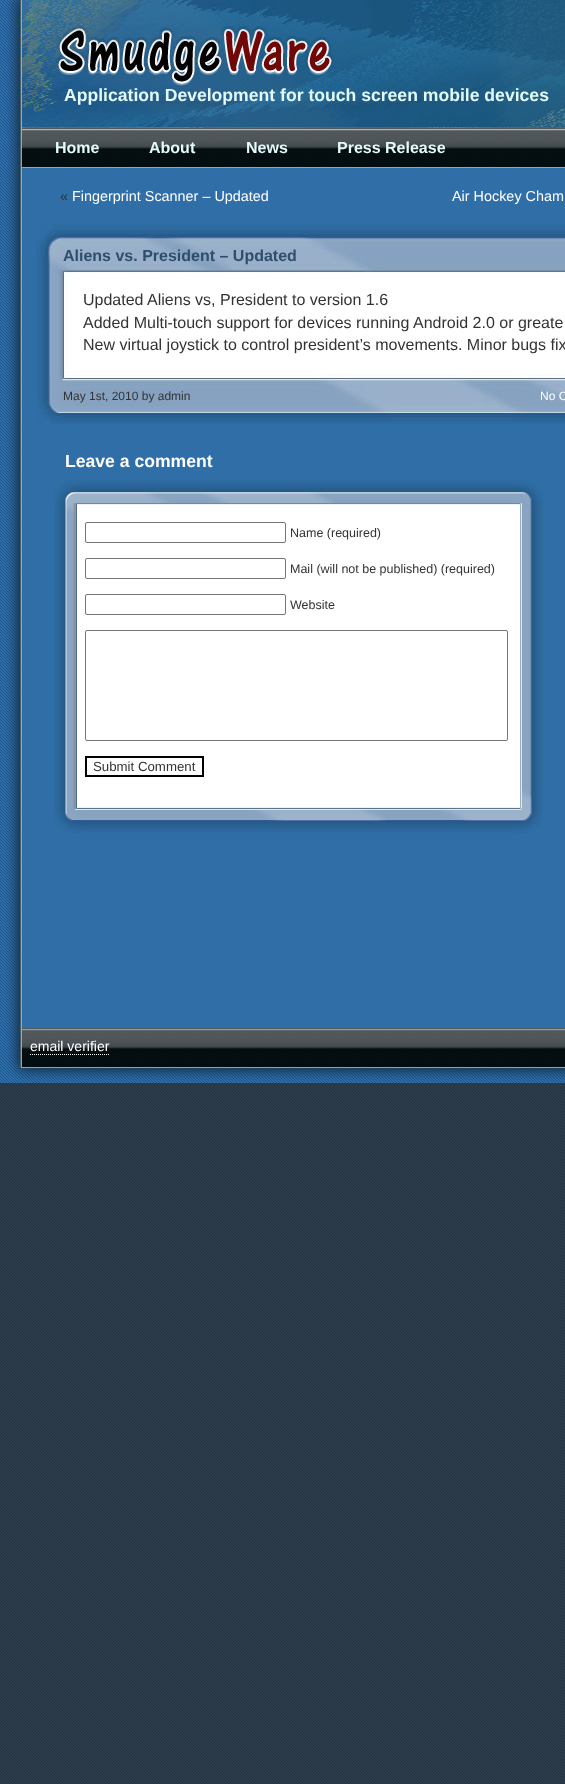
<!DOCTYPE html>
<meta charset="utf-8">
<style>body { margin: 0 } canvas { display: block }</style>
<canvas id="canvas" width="565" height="1784"></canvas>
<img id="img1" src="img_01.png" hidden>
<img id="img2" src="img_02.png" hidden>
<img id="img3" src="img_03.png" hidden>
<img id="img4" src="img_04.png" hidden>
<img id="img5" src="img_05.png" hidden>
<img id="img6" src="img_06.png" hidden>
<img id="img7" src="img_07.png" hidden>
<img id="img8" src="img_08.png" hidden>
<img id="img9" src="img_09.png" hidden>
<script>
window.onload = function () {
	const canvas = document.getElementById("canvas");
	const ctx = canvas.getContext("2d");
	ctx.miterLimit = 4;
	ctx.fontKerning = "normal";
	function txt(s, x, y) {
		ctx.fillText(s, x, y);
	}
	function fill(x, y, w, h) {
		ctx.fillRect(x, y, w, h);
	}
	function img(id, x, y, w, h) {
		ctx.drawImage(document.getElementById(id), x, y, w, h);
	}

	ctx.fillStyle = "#FFFFFF";
	fill(0, 0, 565, 1784);
	img("img1", 0, 1083, 565, 701);
	img("img2", 0, 0, 565, 128);
	img("img3", 0, 128, 565, 40);
	img("img4", 0, 168, 565, 860);
	img("img5", 36, 224, 529, 49);
	img("img6", 36, 273, 529, 83);
	img("img7", 36, 356, 529, 68);
	img("img8", 54, 480, 489, 353);
	ctx.beginPath();
	ctx.roundRect(85.5, 522.5, 200, 20, 1.5);
	ctx.strokeStyle = "#767676";
	ctx.stroke();
	ctx.beginPath();
	ctx.roundRect(85.5, 558.5, 200, 20, 1.5);
	ctx.stroke();
	ctx.beginPath();
	ctx.roundRect(85.5, 594.5, 200, 20, 1.5);
	ctx.stroke();
	ctx.beginPath();
	ctx.roundRect(85.5, 630.5, 422, 110, 1.5);
	ctx.stroke();
	ctx.strokeStyle = "#000000";
	ctx.lineWidth = 2;
	ctx.strokeRect(86, 757, 117, 19);
	img("img9", 0, 1028, 565, 55);
	ctx.beginPath();
	ctx.moveTo(30, 1054.5);
	ctx.lineTo(109, 1054.5);
	ctx.strokeStyle = "#FFFFFF";
	ctx.lineWidth = 1;
	ctx.setLineDash([1, 1]);
	ctx.stroke();
	ctx.font = "bold 17.6px Liberation Sans";
	ctx.fillStyle = "#E3FBFB";
	txt("Application Development for touch screen mobile devices", 64, 101);
	ctx.font = "bold 16px Liberation Sans";
	txt("Home", 55, 153);
	txt("About", 149, 153);
	txt("News", 246, 153);
	txt("Press Release", 337, 153);
	ctx.font = "14.4px Liberation Sans";
	ctx.fillStyle = "#333333";
	txt("«", 60, 201);
	ctx.fillStyle = "#FFFFFF";
	txt("Fingerprint Scanner – Updated", 72, 201);
	txt("Air Hockey Cham", 452, 201);
	ctx.font = "bold 16px Liberation Sans";
	ctx.fillStyle = "#2E4E6D";
	txt("Aliens vs. President – Updated", 63, 261);
	ctx.font = "16px Liberation Sans";
	ctx.fillStyle = "#333333";
	txt("Updated Aliens vs, President to version 1.6", 83, 305);
	txt("Added Multi-touch support for devices running Android 2.0 or greate", 83, 328);
	txt("New virtual joystick to control president’s movements. Minor bugs fix", 83, 350);
	ctx.font = "12px Liberation Sans";
	txt("May 1st, 2010 by admin", 63, 400);
	ctx.fillStyle = "#FFFFFF";
	txt("No C", 540, 400);
	ctx.font = "bold 17.6px Liberation Sans";
	txt("Leave a comment", 65, 467);
	ctx.font = "12.5px Liberation Sans";
	ctx.fillStyle = "#333333";
	txt("Name (required)", 290, 537);
	txt("Mail (will not be published) (required)", 290, 573);
	txt("Website", 290, 609);
	ctx.font = "13.25px Liberation Sans";
	txt("Submit Comment", 93, 771);
	ctx.font = "14px Liberation Sans";
	ctx.fillStyle = "#FFFFFF";
	txt("email verifier", 30, 1051);
};
</script>
